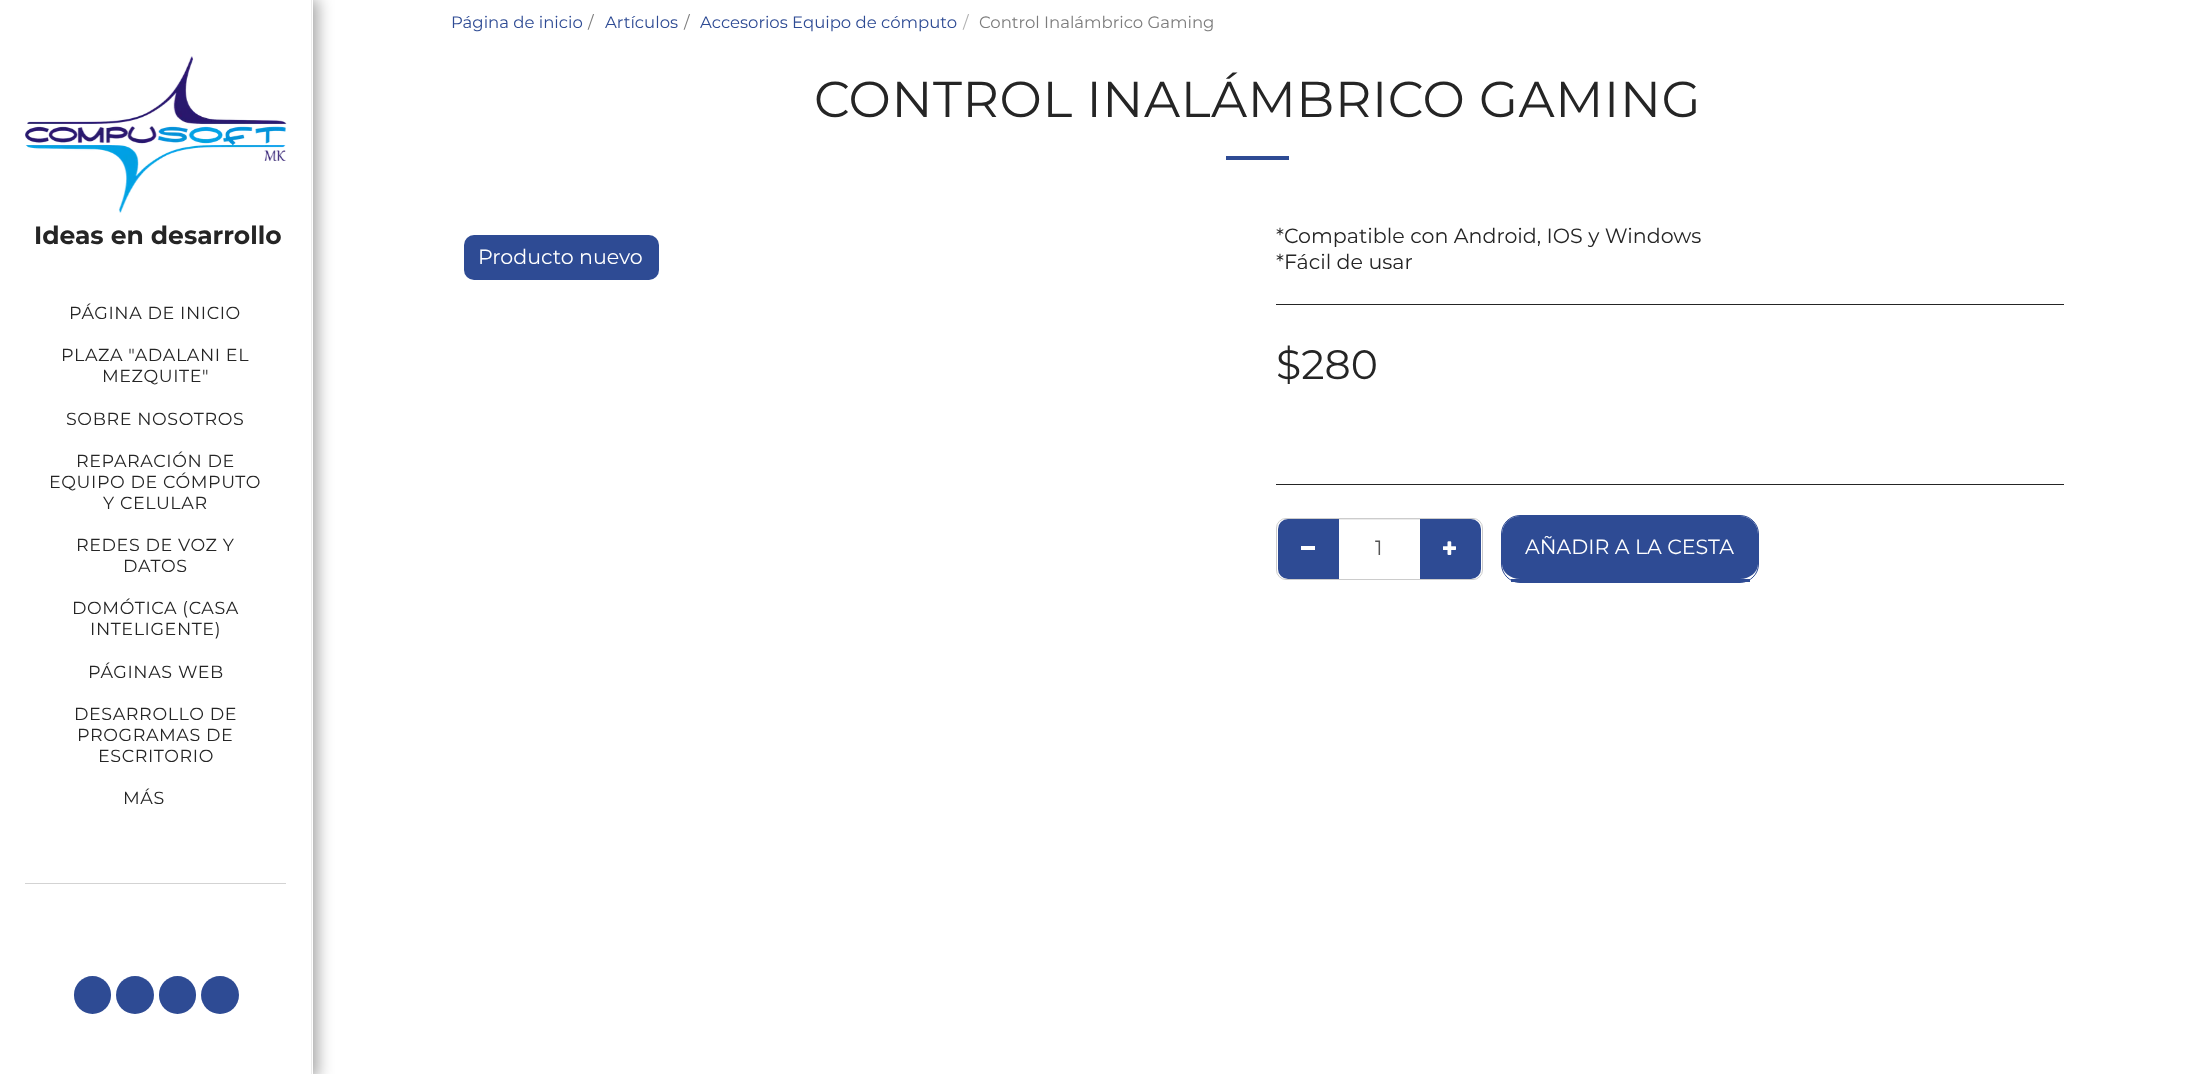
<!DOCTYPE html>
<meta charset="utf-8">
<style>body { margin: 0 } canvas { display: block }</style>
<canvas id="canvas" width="2201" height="1074"></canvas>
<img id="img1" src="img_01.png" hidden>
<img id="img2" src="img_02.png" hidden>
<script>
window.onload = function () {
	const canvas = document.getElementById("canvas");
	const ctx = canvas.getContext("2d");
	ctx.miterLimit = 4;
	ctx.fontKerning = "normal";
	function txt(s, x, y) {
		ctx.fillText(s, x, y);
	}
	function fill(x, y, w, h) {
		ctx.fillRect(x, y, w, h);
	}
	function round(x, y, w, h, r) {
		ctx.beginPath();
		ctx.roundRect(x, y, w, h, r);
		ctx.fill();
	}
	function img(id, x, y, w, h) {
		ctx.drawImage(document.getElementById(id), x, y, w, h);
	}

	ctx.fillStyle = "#FFFFFF";
	fill(0, 0, 2201, 1074);
	ctx.fillStyle = "rgba(0, 0, 0, 0.35)";
	ctx.filter = "blur(7.5px)";
	ctx.beginPath();
	ctx.rect(0, -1, 318, 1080);
	ctx.fill();
	ctx.filter = "none";
	ctx.fillStyle = "#FFFFFF";
	fill(0, 0, 313, 1074);
	ctx.fillStyle = "#EBEBEB";
	fill(311, 0, 1, 1074);
	img("img1", 25, 56, 262, 157);
	ctx.fillStyle = "#D3D3D3";
	fill(25, 883, 261, 1);
	ctx.fillStyle = "#2E4B94";
	round(74, 976, 37, 38, 18.5);
	ctx.beginPath();
	ctx.arc(135, 995, 19, 0, Math.PI * 2);
	ctx.fill();
	round(159, 976, 37, 38, 18.5);
	ctx.beginPath();
	ctx.arc(220, 995, 19, 0, Math.PI * 2);
	ctx.fill();
	fill(1226, 156, 63, 4);
	round(464, 235, 195, 45, 10);
	ctx.fillStyle = "#252525";
	fill(1276, 304, 788, 1);
	fill(1276, 484, 788, 1);
	ctx.beginPath();
	ctx.roundRect(1276.5, 518.5, 206, 61, 9.5);
	ctx.strokeStyle = "#CCCCCC";
	ctx.stroke();
	ctx.fillStyle = "#2E4B94";
	ctx.beginPath();
	ctx.roundRect(1278, 519, 62, 60, [10, 0, 0, 10]);
	ctx.fill();
	ctx.fillStyle = "#FFFFFF";
	fill(1301, 546, 14, 4);
	ctx.fillStyle = "#2E4B94";
	ctx.beginPath();
	ctx.roundRect(1419, 519, 62, 60, [0, 10, 10, 0]);
	ctx.fill();
	ctx.fillStyle = "#FFFFFF";
	fill(1339, 520, 81, 59);
	ctx.fillStyle = "#ECECEC";
	fill(1339, 519, 81, 1);
	img("img2", 1443, 541, 13, 14);
	ctx.fillStyle = "#2E4B94";
	ctx.beginPath();
	ctx.moveTo(1520, 516);
	ctx.lineTo(1740, 516);
	ctx.bezierCurveTo(1750, 516, 1758, 524, 1758, 534);
	ctx.lineTo(1758, 564);
	ctx.bezierCurveTo(1758, 572, 1750, 579, 1740, 579);
	ctx.lineTo(1520, 579);
	ctx.bezierCurveTo(1510, 579, 1502, 572, 1502, 564);
	ctx.lineTo(1502, 534);
	ctx.bezierCurveTo(1502, 524, 1510, 516, 1520, 516);
	ctx.closePath();
	ctx.fill();
	ctx.beginPath();
	ctx.roundRect(1501.5, 515.5, 257, 67, 18.5);
	ctx.strokeStyle = "#2E4B94";
	ctx.stroke();
	fill(1511, 579, 239, 3);
	ctx.font = "bold 25px Montserrat";
	ctx.fillStyle = "#252525";
	txt("Ideas en desarrollo", 34, 244);
	ctx.letterSpacing = "0.6px";
	ctx.font = "17.5px Montserrat";
	txt("PÁGINA DE INICIO", 69, 319);
	txt("PLAZA \"ADALANI EL", 61, 361);
	txt("MEZQUITE\"", 102, 382);
	txt("SOBRE NOSOTROS", 66, 425);
	txt("REPARACIÓN DE", 76, 467);
	txt("EQUIPO DE CÓMPUTO", 49, 488);
	txt("Y CELULAR", 103, 509);
	txt("REDES DE VOZ Y", 76, 551);
	txt("DATOS", 123, 572);
	txt("DOMÓTICA (CASA", 72, 614);
	txt("INTELIGENTE)", 90, 635);
	txt("PÁGINAS WEB", 88, 678);
	txt("DESARROLLO DE", 74, 720);
	txt("PROGRAMAS DE", 77, 741);
	txt("ESCRITORIO", 98, 762);
	txt("MÁS", 123, 804);
	ctx.letterSpacing = "0px";
	ctx.font = "16.5px Montserrat";
	ctx.fillStyle = "#2E4B94";
	txt("Página de inicio", 451, 28);
	ctx.fillStyle = "#7C7C7C";
	txt("/", 588, 28);
	ctx.fillStyle = "#2E4B94";
	txt("Artículos", 605, 28);
	ctx.fillStyle = "#7C7C7C";
	txt("/", 684, 28);
	ctx.fillStyle = "#2E4B94";
	txt("Accesorios Equipo de cómputo", 700, 28);
	ctx.fillStyle = "#B1B1B1";
	txt("/", 963, 28);
	ctx.fillStyle = "#7C7C7C";
	txt("Control Inalámbrico Gaming", 979, 28);
	ctx.letterSpacing = "0.6px";
	ctx.font = "50.4px Montserrat";
	ctx.fillStyle = "#252525";
	txt("CONTROL INALÁMBRICO GAMING", 814, 117);
	ctx.letterSpacing = "0px";
	ctx.font = "20.6px Montserrat";
	ctx.fillStyle = "#FFFFFF";
	txt("Producto nuevo", 478, 264);
	ctx.fillStyle = "#252525";
	txt("*Compatible con Android, IOS y Windows", 1276, 243);
	txt("*Fácil de usar", 1276, 269);
	ctx.font = "41px Montserrat";
	txt("$280", 1276, 379);
	ctx.font = "20.6px Montserrat";
	ctx.fillStyle = "#555555";
	txt("1", 1375, 555);
	ctx.fillStyle = "#FFFFFF";
	txt("AÑADIR A LA CESTA", 1525, 554);
};
</script>
